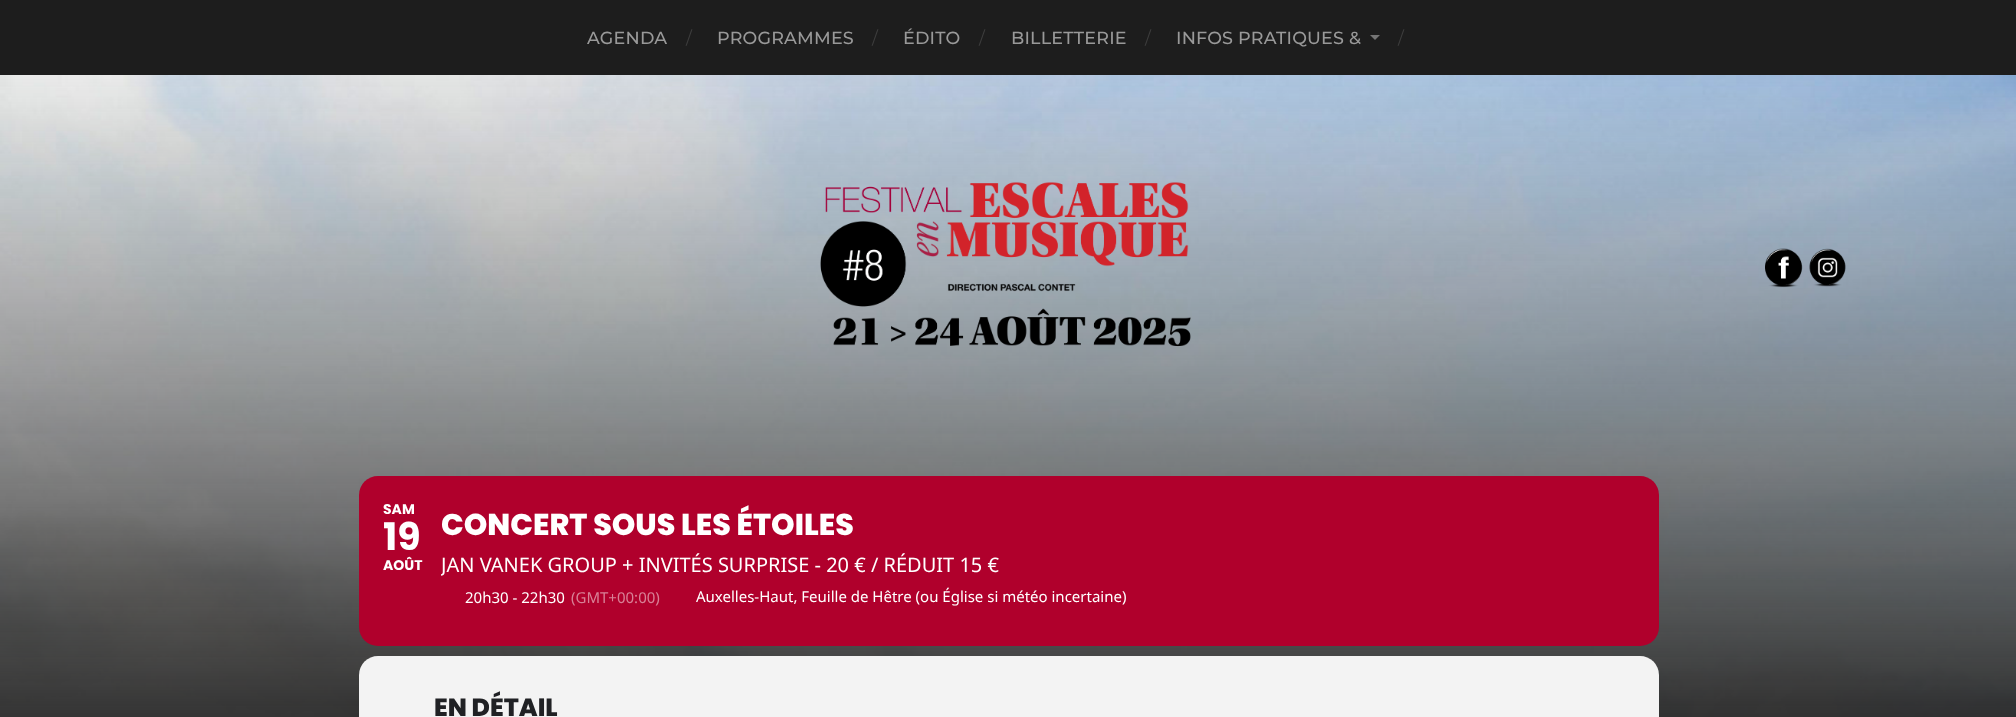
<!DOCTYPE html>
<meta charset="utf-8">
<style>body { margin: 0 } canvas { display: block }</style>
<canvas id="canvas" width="2016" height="717"></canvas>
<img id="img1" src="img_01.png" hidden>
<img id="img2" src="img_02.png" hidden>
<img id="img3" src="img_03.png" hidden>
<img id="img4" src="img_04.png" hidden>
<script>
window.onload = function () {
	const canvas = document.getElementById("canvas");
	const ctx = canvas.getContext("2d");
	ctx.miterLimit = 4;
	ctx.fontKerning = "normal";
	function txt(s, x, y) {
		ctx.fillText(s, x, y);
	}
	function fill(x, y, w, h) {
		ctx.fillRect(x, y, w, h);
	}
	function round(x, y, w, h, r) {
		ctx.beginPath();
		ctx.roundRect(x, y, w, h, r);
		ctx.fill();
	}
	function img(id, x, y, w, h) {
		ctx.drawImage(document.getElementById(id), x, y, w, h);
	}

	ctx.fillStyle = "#1D1D1D";
	fill(0, 0, 2016, 717);
	ctx.fillStyle = "#757575";
	ctx.beginPath();
	ctx.moveTo(1370, 35);
	ctx.lineTo(1380, 35);
	ctx.lineTo(1375, 40);
	ctx.closePath();
	ctx.fill();
	img("img1", 0, 75, 2016, 642);
	img("img2", 820, 182, 371, 165);
	img("img3", 1765, 248, 38, 40);
	img("img4", 1809, 248, 37, 39);
	ctx.fillStyle = "#B0002C";
	round(359, 476, 1300, 170, 19);
	ctx.fillStyle = "#F3F3F3";
	round(359, 656, 1300, 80, 19);
	ctx.letterSpacing = "0.2px";
	ctx.font = "500 17.5px Montserrat";
	ctx.fillStyle = "#999999";
	txt("AGENDA", 587, 44);
	ctx.letterSpacing = "0px";
	ctx.font = "17.5px Montserrat";
	ctx.fillStyle = "#3D3D3D";
	txt("/", 686, 44);
	ctx.letterSpacing = "0.2px";
	ctx.font = "500 17.5px Montserrat";
	ctx.fillStyle = "#999999";
	txt("PROGRAMMES", 717, 44);
	ctx.letterSpacing = "0px";
	ctx.font = "17.5px Montserrat";
	ctx.fillStyle = "#3D3D3D";
	txt("/", 872, 44);
	ctx.letterSpacing = "0.2px";
	ctx.font = "500 17.5px Montserrat";
	ctx.fillStyle = "#999999";
	txt("ÉDITO", 903, 44);
	ctx.letterSpacing = "0px";
	ctx.font = "17.5px Montserrat";
	ctx.fillStyle = "#3D3D3D";
	txt("/", 979, 44);
	ctx.letterSpacing = "0.2px";
	ctx.font = "500 17.5px Montserrat";
	ctx.fillStyle = "#999999";
	txt("BILLETTERIE", 1011, 44);
	ctx.letterSpacing = "0px";
	ctx.font = "17.5px Montserrat";
	ctx.fillStyle = "#3D3D3D";
	txt("/", 1145, 44);
	ctx.letterSpacing = "0.2px";
	ctx.font = "500 17.5px Montserrat";
	ctx.fillStyle = "#999999";
	txt("INFOS PRATIQUES &", 1176, 44);
	ctx.letterSpacing = "0px";
	ctx.font = "17.5px Montserrat";
	ctx.fillStyle = "#3D3D3D";
	txt("/", 1398, 44);
	ctx.font = "bold 14px Poppins";
	ctx.fillStyle = "#FFFFFF";
	txt("SAM", 383, 514);
	ctx.font = "bold 38px Poppins";
	txt("19", 383, 550);
	ctx.font = "bold 14px Poppins";
	txt("AOÛT", 383, 570);
	ctx.font = "800 30px Poppins";
	txt("CONCERT SOUS LES ÉTOILES", 441, 535);
	ctx.save();
	ctx.beginPath();
	ctx.rect(441, 501, 1174, 120);
	ctx.clip();
	ctx.font = "20px Noto Sans";
	txt("JAN VANEK GROUP + INVITÉS SURPRISE - 20 € / RÉDUIT 15 €", 441, 572);
	ctx.restore();
	ctx.font = "15px Noto Sans";
	txt("20h30 - 22h30", 465, 603);
	ctx.fillStyle = "#D88096";
	txt("(GMT+00:00)", 571, 603);
	ctx.fillStyle = "#FFFFFF";
	txt("Auxelles-Haut, Feuille de Hêtre (ou Église si météo incertaine)", 696, 602);
	ctx.font = "800 25px Poppins";
	ctx.fillStyle = "#202124";
	txt("EN DÉTAIL", 434, 716);
};
</script>
